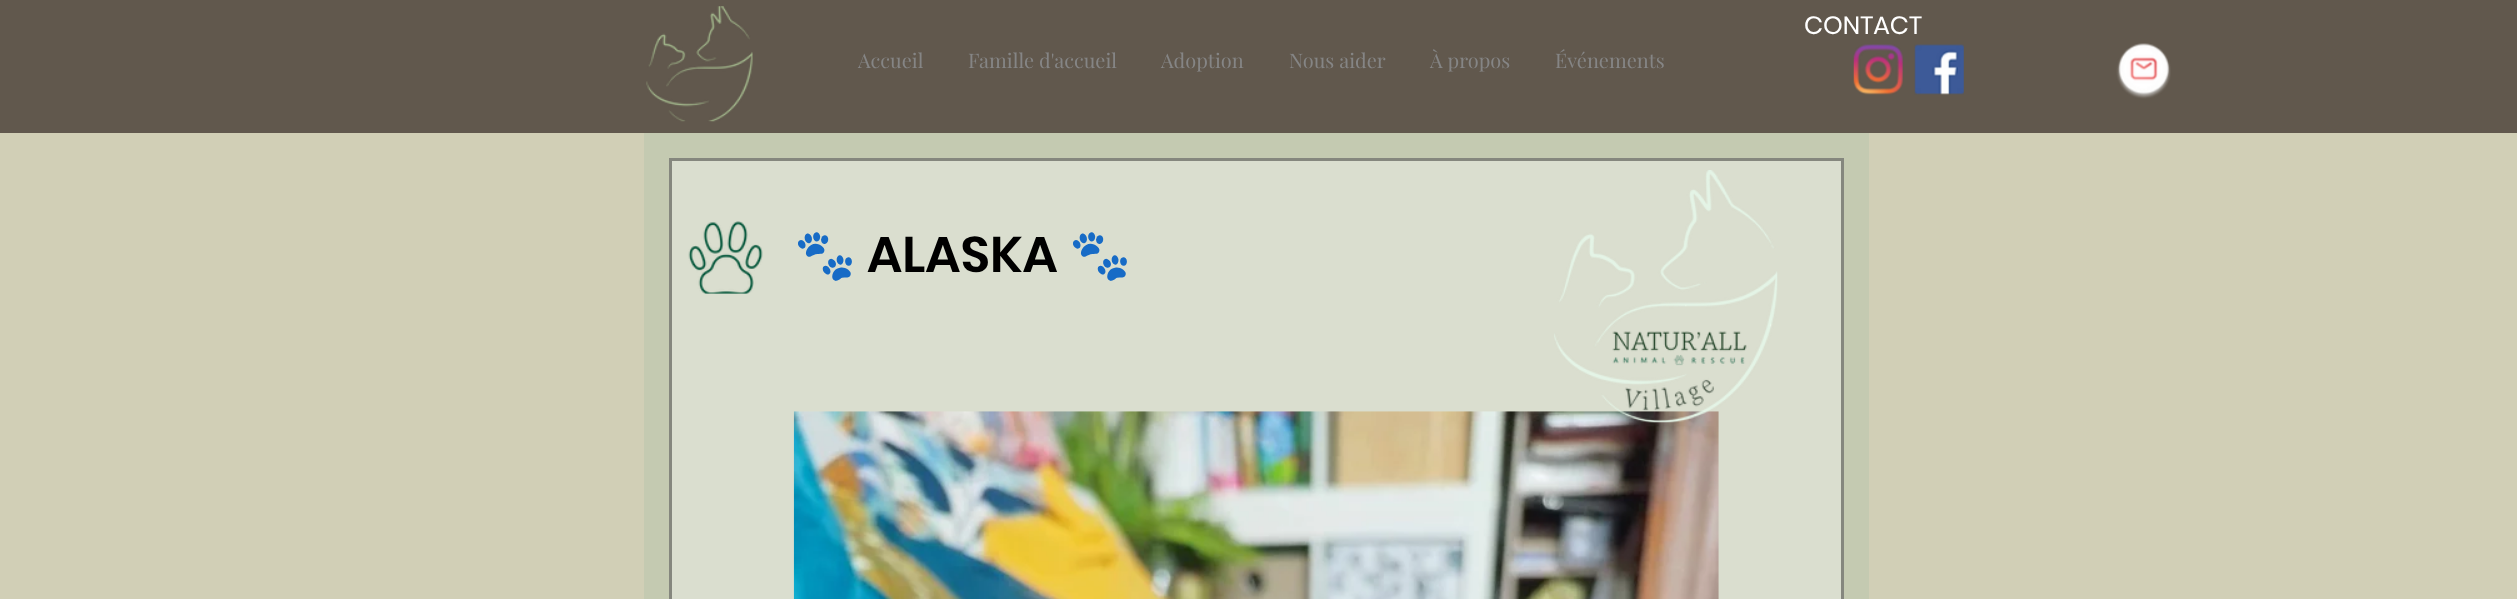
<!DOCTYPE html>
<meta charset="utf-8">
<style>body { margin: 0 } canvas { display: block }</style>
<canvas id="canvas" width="2517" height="599"></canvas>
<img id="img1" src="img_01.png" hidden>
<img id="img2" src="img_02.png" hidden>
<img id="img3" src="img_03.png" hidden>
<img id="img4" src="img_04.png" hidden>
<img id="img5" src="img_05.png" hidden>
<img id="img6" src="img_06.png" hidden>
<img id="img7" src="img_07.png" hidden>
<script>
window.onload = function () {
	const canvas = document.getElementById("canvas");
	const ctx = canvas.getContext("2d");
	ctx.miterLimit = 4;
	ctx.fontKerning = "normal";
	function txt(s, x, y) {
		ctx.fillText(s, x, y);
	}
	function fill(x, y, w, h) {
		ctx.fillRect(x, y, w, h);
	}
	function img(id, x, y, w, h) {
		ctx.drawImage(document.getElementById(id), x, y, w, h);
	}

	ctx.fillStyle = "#D1CFB6";
	fill(0, 0, 2517, 599);
	ctx.fillStyle = "#61584D";
	fill(0, 0, 2517, 133);
	img("img1", 646, 6, 107, 116);
	img("img2", 1853, 44, 50, 51);
	img("img3", 1914, 44, 50, 51);
	img("img4", 2116, 43, 55, 56);
	ctx.fillStyle = "#C4CAB1";
	fill(644, 133, 1225, 466);
	ctx.fillStyle = "#DADECF";
	ctx.beginPath();
	ctx.rect(670.5, 159.5, 1172, 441);
	ctx.fill();
	ctx.strokeStyle = "#85877E";
	ctx.lineWidth = 3;
	ctx.stroke();
	img("img5", 688, 221, 75, 73);
	img("img6", 793, 411, 926, 188);
	img("img7", 1554, 170, 224, 253);
	ctx.font = "25px Poppins";
	ctx.fillStyle = "#FFFFFF";
	txt("CONTACT", 1804, 34);
	ctx.font = "20px Playfair Display";
	ctx.fillStyle = "#858585";
	txt("Accueil", 858, 68);
	txt("Famille d'accueil", 968, 68);
	txt("Adoption", 1161, 68);
	txt("Nous aider", 1289, 68);
	txt("À propos", 1430, 68);
	txt("Événements", 1555, 68);
	ctx.font = "50px Noto Color Emoji";
	ctx.fillStyle = "#000000";
	txt("🐾", 794, 272);
	ctx.font = "600 50px Poppins";
	txt("ALASKA", 867, 272);
	ctx.font = "50px Noto Color Emoji";
	txt("🐾", 1069, 272);
};
</script>
